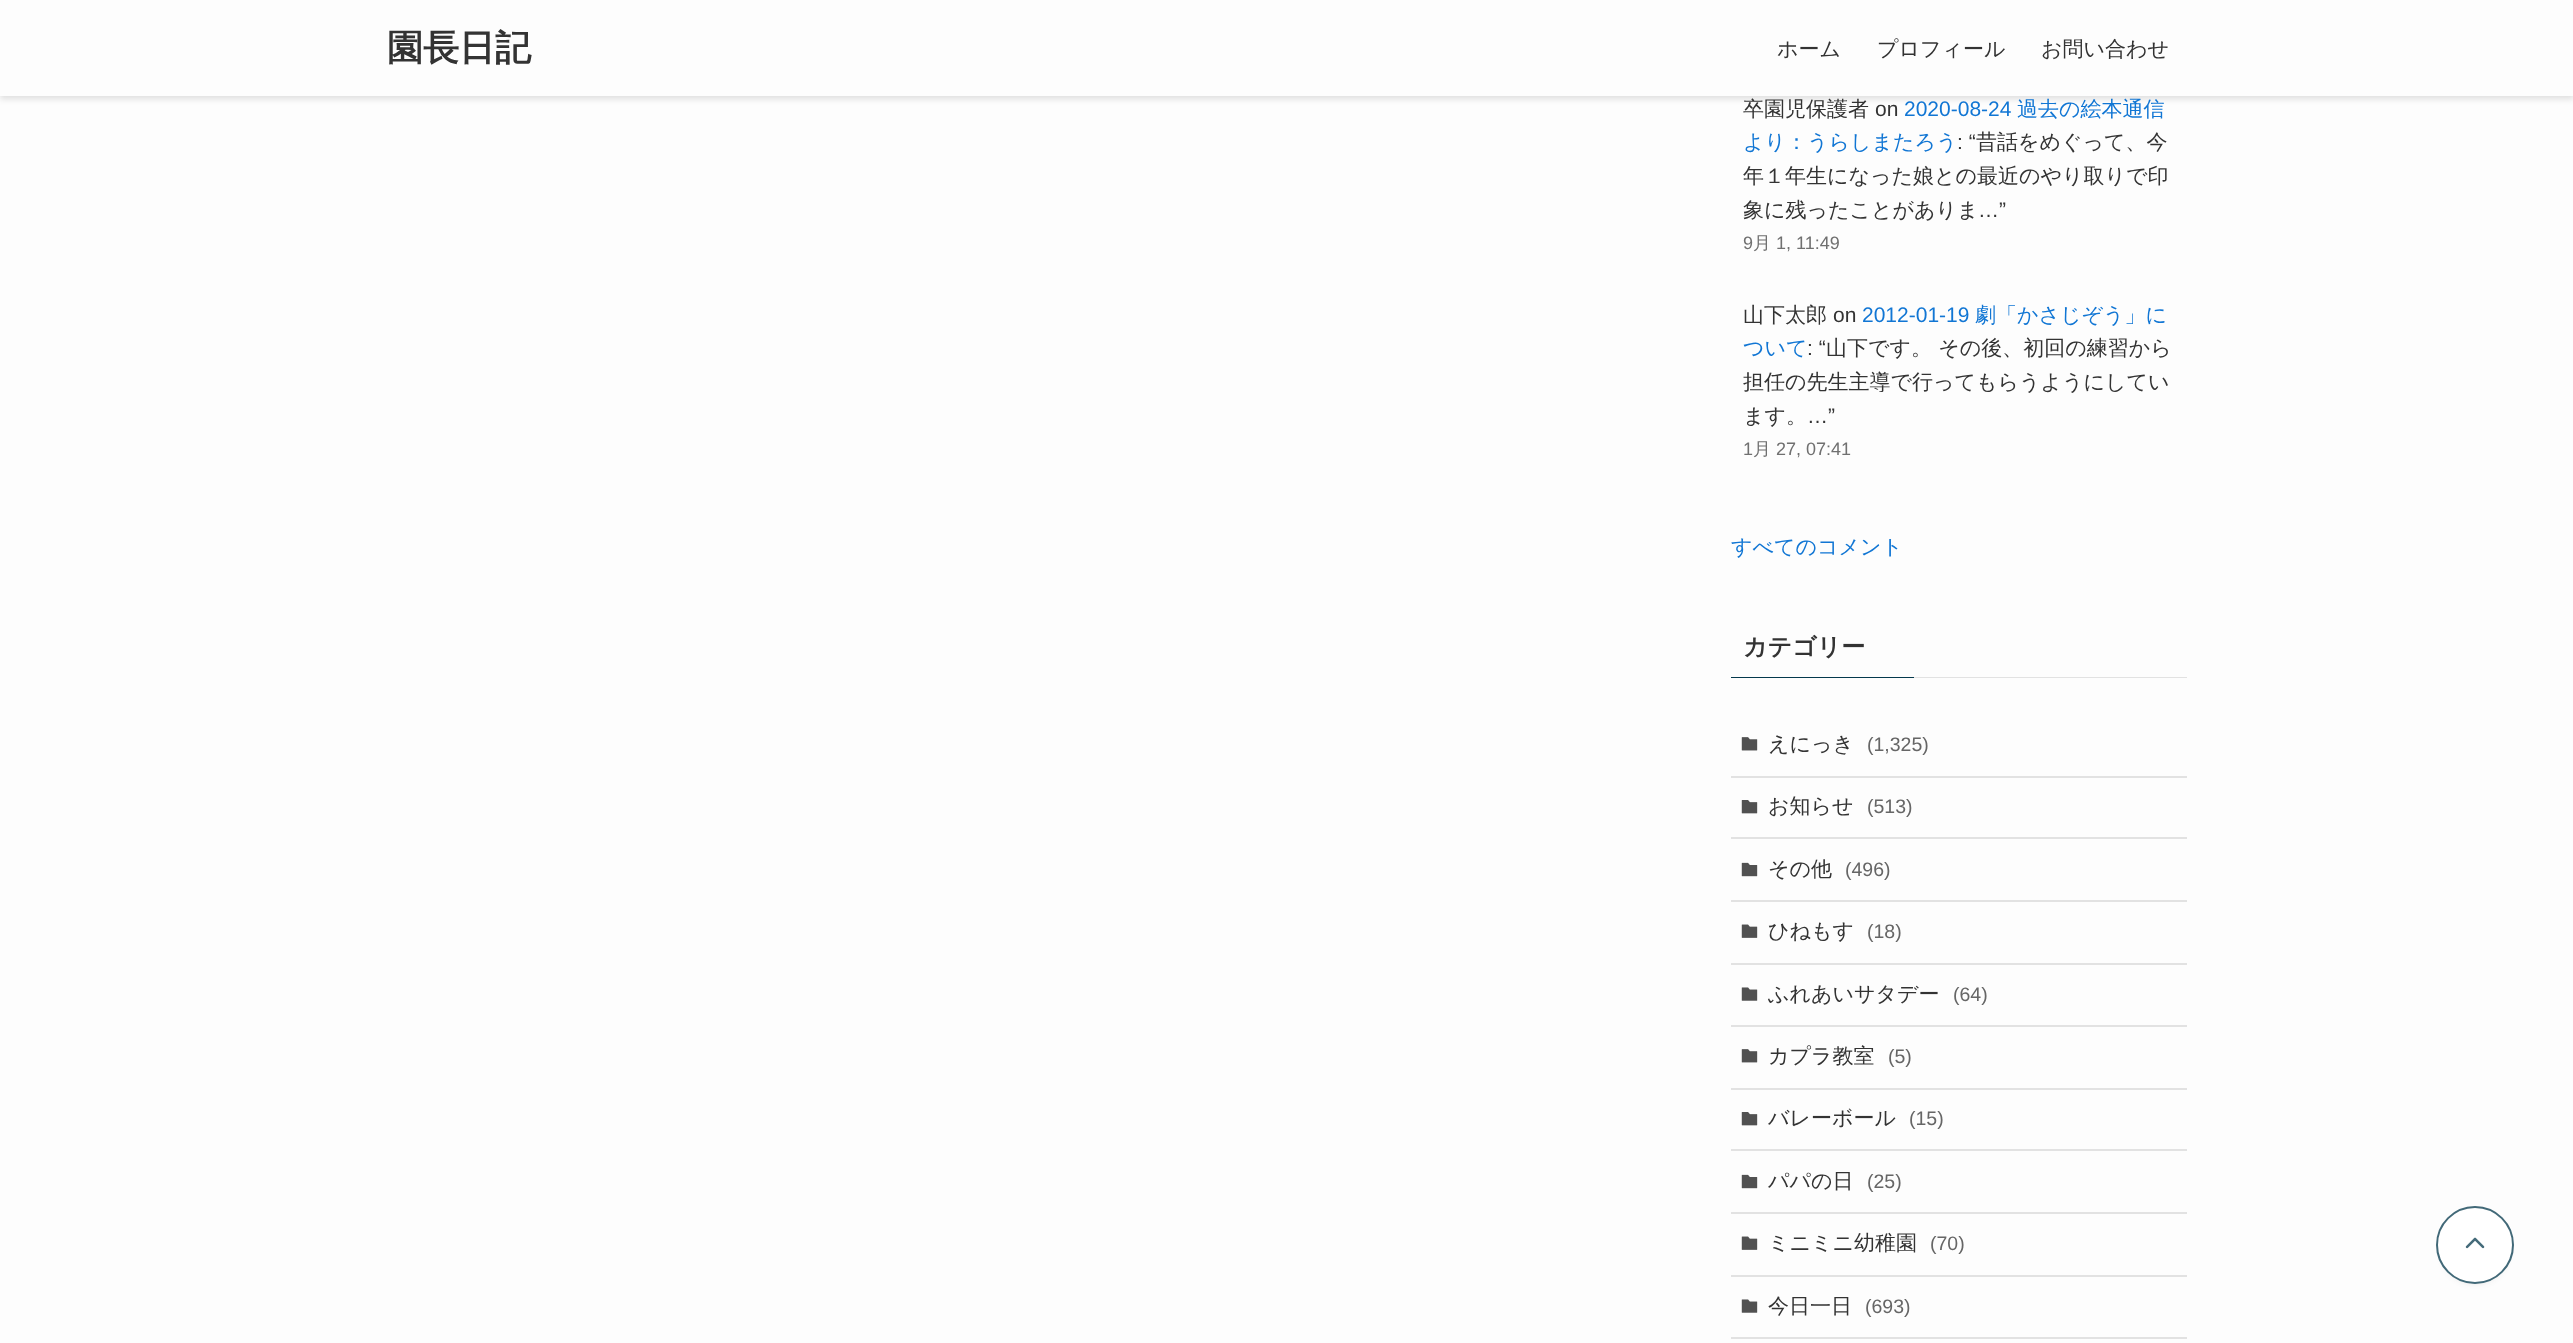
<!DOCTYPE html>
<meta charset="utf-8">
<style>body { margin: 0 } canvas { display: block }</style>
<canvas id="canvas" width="2573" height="1343"></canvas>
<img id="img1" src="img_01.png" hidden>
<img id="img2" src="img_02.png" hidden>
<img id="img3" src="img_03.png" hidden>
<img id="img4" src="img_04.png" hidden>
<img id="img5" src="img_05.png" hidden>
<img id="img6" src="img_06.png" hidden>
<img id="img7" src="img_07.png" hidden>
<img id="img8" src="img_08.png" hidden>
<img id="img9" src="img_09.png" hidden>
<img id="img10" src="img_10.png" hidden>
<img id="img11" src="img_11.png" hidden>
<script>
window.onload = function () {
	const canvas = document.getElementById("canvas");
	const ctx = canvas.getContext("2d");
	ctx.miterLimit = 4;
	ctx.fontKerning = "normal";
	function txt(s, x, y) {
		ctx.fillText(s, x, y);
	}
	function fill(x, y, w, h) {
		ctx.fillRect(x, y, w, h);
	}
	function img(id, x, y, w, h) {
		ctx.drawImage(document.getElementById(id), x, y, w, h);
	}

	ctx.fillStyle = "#FDFDFD";
	fill(0, 0, 2573, 1343);
	ctx.fillStyle = "rgba(0, 0, 0, 0.12)";
	ctx.filter = "blur(3px)";
	ctx.beginPath();
	ctx.rect(0, 3, 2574, 96);
	ctx.fill();
	ctx.filter = "none";
	ctx.fillStyle = "#FDFDFD";
	fill(0, 0, 2573, 96);
	ctx.fillStyle = "#04384C";
	fill(1731, 677, 183, 1);
	ctx.fillStyle = "#E2E2E2";
	fill(1914, 677, 273, 1);
	fill(1731, 776, 456, 2);
	img("img1", 1741, 737, 17, 14);
	fill(1731, 837, 456, 2);
	img("img2", 1741, 800, 17, 14);
	fill(1731, 900, 456, 2);
	img("img3", 1741, 862, 17, 15);
	fill(1731, 963, 456, 2);
	img("img4", 1741, 924, 17, 14);
	fill(1731, 1025, 456, 2);
	img("img5", 1741, 987, 17, 14);
	fill(1731, 1088, 456, 2);
	img("img6", 1741, 1049, 17, 14);
	fill(1731, 1149, 456, 2);
	img("img7", 1741, 1112, 17, 14);
	fill(1731, 1212, 456, 2);
	img("img8", 1741, 1174, 17, 15);
	fill(1731, 1275, 456, 2);
	img("img9", 1741, 1236, 17, 14);
	fill(1731, 1337, 456, 2);
	img("img10", 1741, 1299, 17, 14);
	ctx.fillStyle = "rgba(63, 63, 63, 0.1)";
	ctx.filter = "blur(3px)";
	ctx.beginPath();
	ctx.roundRect(2442, 1218, 66, 66, 33);
	ctx.fill();
	ctx.filter = "none";
	ctx.fillStyle = "#FFFFFF";
	ctx.beginPath();
	ctx.arc(2475, 1245, 38, 0, Math.PI * 2);
	ctx.fill();
	ctx.strokeStyle = "#426978";
	ctx.lineWidth = 2;
	ctx.stroke();
	img("img11", 2465, 1237, 20, 12);
	ctx.font = "bold 36px WenQuanYi Zen Hei";
	ctx.fillStyle = "#333333";
	txt("園長日記", 387, 60);
	ctx.font = "500 21px WenQuanYi Zen Hei";
	txt("ホーム", 1777, 56);
	txt("プロフィール", 1877, 56);
	txt("お問い合わせ", 2041, 56);
	txt("卒園児保護者", 1743, 116);
	ctx.font = "21px Liberation Sans";
	txt("on", 1875, 116);
	ctx.fillStyle = "#1176D4";
	txt("2020-08-24", 1904, 116);
	ctx.font = "500 21px WenQuanYi Zen Hei";
	txt("過去の絵本通信", 2017, 116);
	txt("より：うらしまたろう", 1743, 149);
	ctx.font = "21px Liberation Sans";
	ctx.fillStyle = "#333333";
	txt(": “", 1957, 149);
	ctx.font = "500 21px WenQuanYi Zen Hei";
	txt("昔話をめぐって、今", 1976, 149);
	txt("年１年生になった娘との最近のやり取りで印", 1743, 183);
	txt("象に残ったことがありま", 1743, 217);
	ctx.font = "21px Liberation Sans";
	txt("…”", 1978, 217);
	ctx.font = "18px Liberation Sans";
	ctx.fillStyle = "#707070";
	txt("9", 1743, 249);
	ctx.font = "500 18px WenQuanYi Zen Hei";
	txt("月", 1753, 249);
	ctx.font = "18px Liberation Sans";
	txt("1, 11:49", 1776, 249);
	ctx.font = "500 21px WenQuanYi Zen Hei";
	ctx.fillStyle = "#333333";
	txt("山下太郎", 1743, 322);
	ctx.font = "21px Liberation Sans";
	txt("on", 1833, 322);
	ctx.fillStyle = "#1176D4";
	txt("2012-01-19", 1862, 322);
	ctx.font = "500 21px WenQuanYi Zen Hei";
	txt("劇「かさじぞう」に", 1975, 322);
	txt("ついて", 1743, 355);
	ctx.font = "21px Liberation Sans";
	ctx.fillStyle = "#333333";
	txt(": “", 1807, 355);
	ctx.font = "500 21px WenQuanYi Zen Hei";
	txt("山下です。 その後、初回の練習から", 1826, 355);
	txt("担任の先生主導で行ってもらうようにしてい", 1743, 389);
	txt("ます。", 1743, 423);
	ctx.font = "21px Liberation Sans";
	txt("…”", 1807, 423);
	ctx.font = "18px Liberation Sans";
	ctx.fillStyle = "#707070";
	txt("1", 1743, 455);
	ctx.font = "500 18px WenQuanYi Zen Hei";
	txt("月", 1753, 455);
	ctx.font = "18px Liberation Sans";
	txt("27, 07:41", 1776, 455);
	ctx.font = "500 21px WenQuanYi Zen Hei";
	ctx.fillStyle = "#1176D4";
	txt("すべてのコメント", 1731, 554);
	ctx.font = "bold 24px WenQuanYi Zen Hei";
	ctx.fillStyle = "#333333";
	txt("カテゴリー", 1743, 655);
	ctx.font = "500 21px WenQuanYi Zen Hei";
	txt("えにっき", 1768, 751);
	ctx.font = "19.5px Liberation Sans";
	ctx.fillStyle = "#666666";
	txt("(1,325)", 1867, 751);
	ctx.font = "500 21px WenQuanYi Zen Hei";
	ctx.fillStyle = "#333333";
	txt("お知らせ", 1768, 813);
	ctx.font = "19.5px Liberation Sans";
	ctx.fillStyle = "#666666";
	txt("(513)", 1867, 813);
	ctx.font = "500 21px WenQuanYi Zen Hei";
	ctx.fillStyle = "#333333";
	txt("その他", 1768, 876);
	ctx.font = "19.5px Liberation Sans";
	ctx.fillStyle = "#666666";
	txt("(496)", 1845, 876);
	ctx.font = "500 21px WenQuanYi Zen Hei";
	ctx.fillStyle = "#333333";
	txt("ひねもす", 1768, 938);
	ctx.font = "19.5px Liberation Sans";
	ctx.fillStyle = "#666666";
	txt("(18)", 1867, 938);
	ctx.font = "500 21px WenQuanYi Zen Hei";
	ctx.fillStyle = "#333333";
	txt("ふれあいサタデー", 1768, 1001);
	ctx.font = "19.5px Liberation Sans";
	ctx.fillStyle = "#666666";
	txt("(64)", 1953, 1001);
	ctx.font = "500 21px WenQuanYi Zen Hei";
	ctx.fillStyle = "#333333";
	txt("カプラ教室", 1768, 1063);
	ctx.font = "19.5px Liberation Sans";
	ctx.fillStyle = "#666666";
	txt("(5)", 1888, 1063);
	ctx.font = "500 21px WenQuanYi Zen Hei";
	ctx.fillStyle = "#333333";
	txt("バレーボール", 1768, 1125);
	ctx.font = "19.5px Liberation Sans";
	ctx.fillStyle = "#666666";
	txt("(15)", 1909, 1125);
	ctx.font = "500 21px WenQuanYi Zen Hei";
	ctx.fillStyle = "#333333";
	txt("パパの日", 1768, 1188);
	ctx.font = "19.5px Liberation Sans";
	ctx.fillStyle = "#666666";
	txt("(25)", 1867, 1188);
	ctx.font = "500 21px WenQuanYi Zen Hei";
	ctx.fillStyle = "#333333";
	txt("ミニミニ幼稚園", 1768, 1250);
	ctx.font = "19.5px Liberation Sans";
	ctx.fillStyle = "#666666";
	txt("(70)", 1930, 1250);
	ctx.font = "500 21px WenQuanYi Zen Hei";
	ctx.fillStyle = "#333333";
	txt("今日一日", 1768, 1313);
	ctx.font = "19.5px Liberation Sans";
	ctx.fillStyle = "#666666";
	txt("(693)", 1865, 1313);
};
</script>
